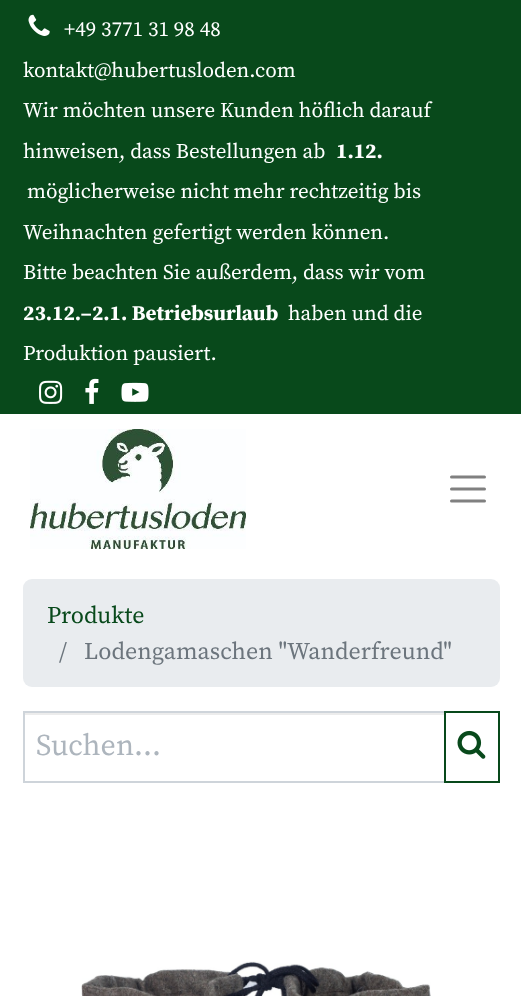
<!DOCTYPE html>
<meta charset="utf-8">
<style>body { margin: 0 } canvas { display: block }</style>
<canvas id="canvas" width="521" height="996"></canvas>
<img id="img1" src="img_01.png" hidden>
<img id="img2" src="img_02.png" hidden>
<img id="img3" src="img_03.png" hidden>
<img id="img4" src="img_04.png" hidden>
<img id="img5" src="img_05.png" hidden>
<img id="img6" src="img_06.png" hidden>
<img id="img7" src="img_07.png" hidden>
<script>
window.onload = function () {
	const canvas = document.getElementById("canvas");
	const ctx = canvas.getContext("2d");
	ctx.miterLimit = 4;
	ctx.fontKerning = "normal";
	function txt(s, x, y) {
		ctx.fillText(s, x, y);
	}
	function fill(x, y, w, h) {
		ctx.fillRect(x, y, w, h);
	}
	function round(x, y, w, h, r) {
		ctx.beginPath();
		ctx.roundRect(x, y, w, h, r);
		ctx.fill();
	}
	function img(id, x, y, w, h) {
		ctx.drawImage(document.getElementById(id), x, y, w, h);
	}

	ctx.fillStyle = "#FFFFFF";
	fill(0, 0, 521, 996);
	ctx.fillStyle = "#08491B";
	fill(0, 0, 521, 414);
	img("img1", 28, 14, 22, 22);
	img("img2", 39, 380, 24, 24);
	img("img3", 85, 378, 14, 26);
	img("img4", 121, 382, 28, 20);
	img("img5", 30, 429, 216, 120);
	ctx.beginPath();
	ctx.moveTo(451.5, 477);
	ctx.lineTo(484.5, 477);
	ctx.moveTo(451.5, 489);
	ctx.lineTo(484.5, 489);
	ctx.moveTo(451.5, 501);
	ctx.lineTo(484.5, 501);
	ctx.strokeStyle = "#808080";
	ctx.lineWidth = 3;
	ctx.lineCap = "round";
	ctx.stroke();
	ctx.fillStyle = "#E9ECEF";
	round(23, 579, 477, 108, 9);
	ctx.fillStyle = "#ECECEC";
	fill(24, 713, 420, 2);
	ctx.strokeStyle = "#CED4DA";
	ctx.lineWidth = 2;
	ctx.strokeRect(24, 712, 421, 70);
	ctx.strokeStyle = "#08491B";
	ctx.strokeRect(445, 712, 54, 70);
	img("img6", 457, 730, 29, 29);
	img("img7", 81, 961, 350, 35);
	ctx.font = "21px Source Serif Pro";
	ctx.fillStyle = "#FFFFFF";
	txt("+49 3771 31 98 48", 64, 36);
	txt("kontakt@hubertusloden.com", 23, 77);
	txt("Wir möchten unsere Kunden höflich darauf", 23, 117);
	txt("hinweisen, dass Bestellungen ab", 23, 158);
	ctx.font = "bold 21px Source Serif Pro";
	txt("1.12.", 336, 158);
	ctx.font = "21px Source Serif Pro";
	txt("möglicherweise nicht mehr rechtzeitig bis", 27, 198);
	txt("Weihnachten gefertigt werden können.", 23, 239);
	txt("Bitte beachten Sie außerdem, dass wir vom", 23, 279);
	ctx.font = "bold 21px Source Serif Pro";
	txt("23.12.–2.1. Betriebsurlaub", 23, 320);
	ctx.font = "21px Source Serif Pro";
	txt("haben und die", 288, 320);
	txt("Produktion pausiert.", 23, 360);
	ctx.font = "24px Source Serif Pro";
	ctx.fillStyle = "#08491B";
	txt("Produkte", 47, 623);
	ctx.fillStyle = "#6C757D";
	txt("/", 59, 659);
	txt("Lodengamaschen \"Wanderfreund\"", 84, 659);
	ctx.font = "30px Source Serif Pro";
	ctx.fillStyle = "#ADB5BD";
	txt("Suchen...", 36, 755);
};
</script>
